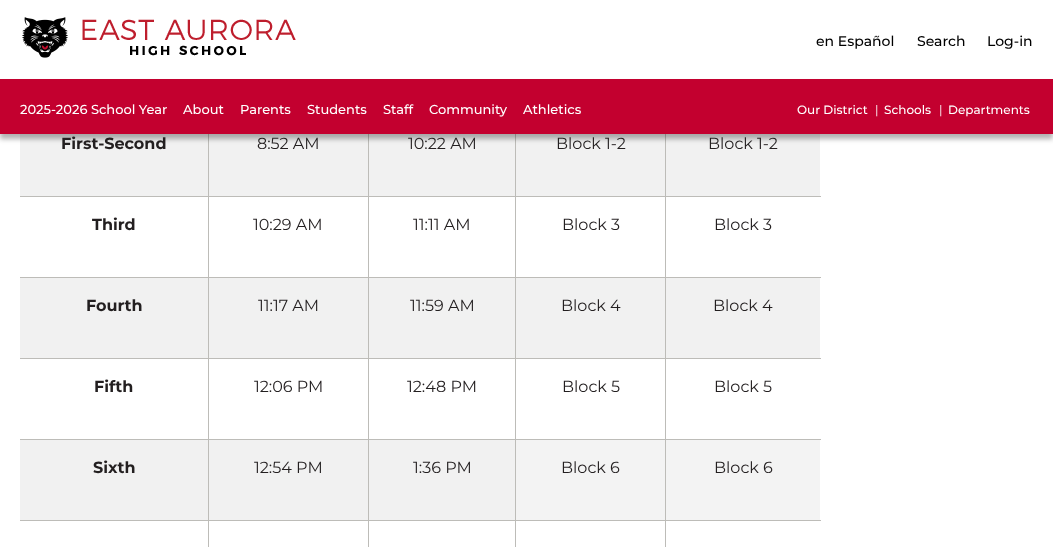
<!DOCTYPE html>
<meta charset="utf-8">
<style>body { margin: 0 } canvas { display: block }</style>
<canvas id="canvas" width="1053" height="547"></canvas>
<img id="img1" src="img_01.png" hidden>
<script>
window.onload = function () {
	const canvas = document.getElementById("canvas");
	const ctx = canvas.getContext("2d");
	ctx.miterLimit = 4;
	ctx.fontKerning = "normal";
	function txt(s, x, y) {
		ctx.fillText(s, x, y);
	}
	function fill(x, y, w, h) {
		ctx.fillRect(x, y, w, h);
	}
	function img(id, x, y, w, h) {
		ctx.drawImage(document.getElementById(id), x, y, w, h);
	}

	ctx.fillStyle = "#FFFFFF";
	fill(0, 0, 1053, 547);
	img("img1", 22, 17, 274, 41);
	ctx.fillStyle = "#F1F1F1";
	fill(20, 134, 188, 62);
	ctx.fillStyle = "#BDBCB8";
	fill(665, 520, 1, 27);
	fill(665, 520, 156, 1);
	fill(665, 439, 1, 82);
	fill(665, 439, 156, 1);
	fill(665, 358, 1, 82);
	fill(665, 358, 156, 1);
	fill(665, 277, 1, 82);
	fill(665, 277, 156, 1);
	fill(665, 196, 1, 82);
	fill(665, 196, 156, 1);
	fill(665, 134, 1, 63);
	fill(515, 520, 1, 27);
	fill(515, 520, 151, 1);
	fill(515, 439, 1, 82);
	fill(515, 439, 151, 1);
	fill(515, 358, 1, 82);
	fill(515, 358, 151, 1);
	fill(515, 277, 1, 82);
	fill(515, 277, 151, 1);
	fill(515, 196, 1, 82);
	fill(515, 196, 151, 1);
	fill(515, 134, 1, 63);
	fill(368, 520, 1, 27);
	fill(368, 520, 148, 1);
	fill(368, 439, 1, 82);
	fill(368, 439, 148, 1);
	fill(368, 358, 1, 82);
	fill(368, 358, 148, 1);
	fill(368, 277, 1, 82);
	fill(368, 277, 148, 1);
	fill(368, 196, 1, 82);
	fill(368, 196, 148, 1);
	fill(368, 134, 1, 63);
	fill(208, 520, 1, 27);
	fill(208, 520, 161, 1);
	fill(208, 439, 1, 82);
	fill(208, 439, 161, 1);
	fill(208, 358, 1, 82);
	fill(208, 358, 161, 1);
	fill(208, 277, 1, 82);
	fill(208, 277, 161, 1);
	fill(208, 196, 1, 82);
	fill(208, 196, 161, 1);
	fill(208, 134, 1, 63);
	ctx.fillStyle = "#F1F1F1";
	fill(209, 134, 159, 62);
	fill(369, 134, 146, 62);
	fill(516, 134, 149, 62);
	fill(666, 134, 154, 62);
	ctx.fillStyle = "rgba(0, 0, 0, 0.3)";
	ctx.filter = "blur(2.5px)";
	ctx.beginPath();
	ctx.rect(0, 84, 1053, 55);
	ctx.fill();
	ctx.filter = "none";
	ctx.fillStyle = "#C3002F";
	fill(0, 79, 1053, 55);
	ctx.fillStyle = "#BDBCB8";
	fill(20, 196, 189, 1);
	fill(20, 277, 189, 1);
	ctx.fillStyle = "#F1F1F1";
	fill(20, 278, 188, 80);
	ctx.fillStyle = "#BDBCB8";
	fill(20, 358, 189, 1);
	ctx.fillStyle = "#F1F1F1";
	fill(209, 278, 159, 80);
	fill(369, 278, 146, 80);
	fill(516, 278, 149, 80);
	fill(666, 278, 154, 80);
	ctx.fillStyle = "#BDBCB8";
	fill(20, 439, 189, 1);
	ctx.fillStyle = "#F1F1F1";
	fill(20, 440, 188, 80);
	ctx.fillStyle = "#BDBCB8";
	fill(20, 520, 189, 1);
	ctx.fillStyle = "#F1F1F1";
	fill(209, 440, 159, 80);
	fill(369, 440, 146, 80);
	ctx.fillStyle = "#F3F3F3";
	fill(516, 440, 149, 80);
	fill(666, 440, 154, 80);
	ctx.font = "500 14px Montserrat";
	ctx.fillStyle = "#000000";
	txt("en Español", 816, 46);
	txt("Search", 917, 46);
	txt("Log-in", 987, 46);
	ctx.font = "500 13px Montserrat";
	ctx.fillStyle = "#FFFFFF";
	txt("2025-2026 School Year", 20, 114);
	txt("About", 183, 114);
	txt("Parents", 240, 114);
	txt("Students", 307, 114);
	txt("Staff", 383, 114);
	txt("Community", 429, 114);
	txt("Athletics", 523, 114);
	ctx.font = "500 12px Montserrat";
	txt("Our District", 797, 114);
	ctx.font = "12px Montserrat";
	txt("|", 875, 114);
	ctx.font = "500 12px Montserrat";
	txt("Schools", 884, 114);
	ctx.font = "12px Montserrat";
	txt("|", 939, 114);
	ctx.font = "500 12px Montserrat";
	txt("Departments", 948, 114);
	ctx.font = "bold 16px Montserrat";
	ctx.fillStyle = "#231F20";
	txt("First-Second", 61, 149);
	ctx.font = "16px Montserrat";
	txt("8:52 AM", 257, 149);
	txt("10:22 AM", 408, 149);
	txt("Block 1-2", 556, 149);
	txt("Block 1-2", 708, 149);
	ctx.font = "bold 16px Montserrat";
	txt("Third", 92, 230);
	ctx.font = "16px Montserrat";
	txt("10:29 AM", 253, 230);
	txt("11:11 AM", 413, 230);
	txt("Block 3", 562, 230);
	txt("Block 3", 714, 230);
	ctx.font = "bold 16px Montserrat";
	txt("Fourth", 86, 311);
	ctx.font = "16px Montserrat";
	txt("11:17 AM", 258, 311);
	txt("11:59 AM", 410, 311);
	txt("Block 4", 561, 311);
	txt("Block 4", 713, 311);
	ctx.font = "bold 16px Montserrat";
	txt("Fifth", 94, 392);
	ctx.font = "16px Montserrat";
	txt("12:06 PM", 254, 392);
	txt("12:48 PM", 407, 392);
	txt("Block 5", 562, 392);
	txt("Block 5", 714, 392);
	ctx.font = "bold 16px Montserrat";
	txt("Sixth", 93, 473);
	ctx.font = "16px Montserrat";
	txt("12:54 PM", 254, 473);
	txt("1:36 PM", 413, 473);
	txt("Block 6", 561, 473);
	txt("Block 6", 714, 473);
};
</script>
